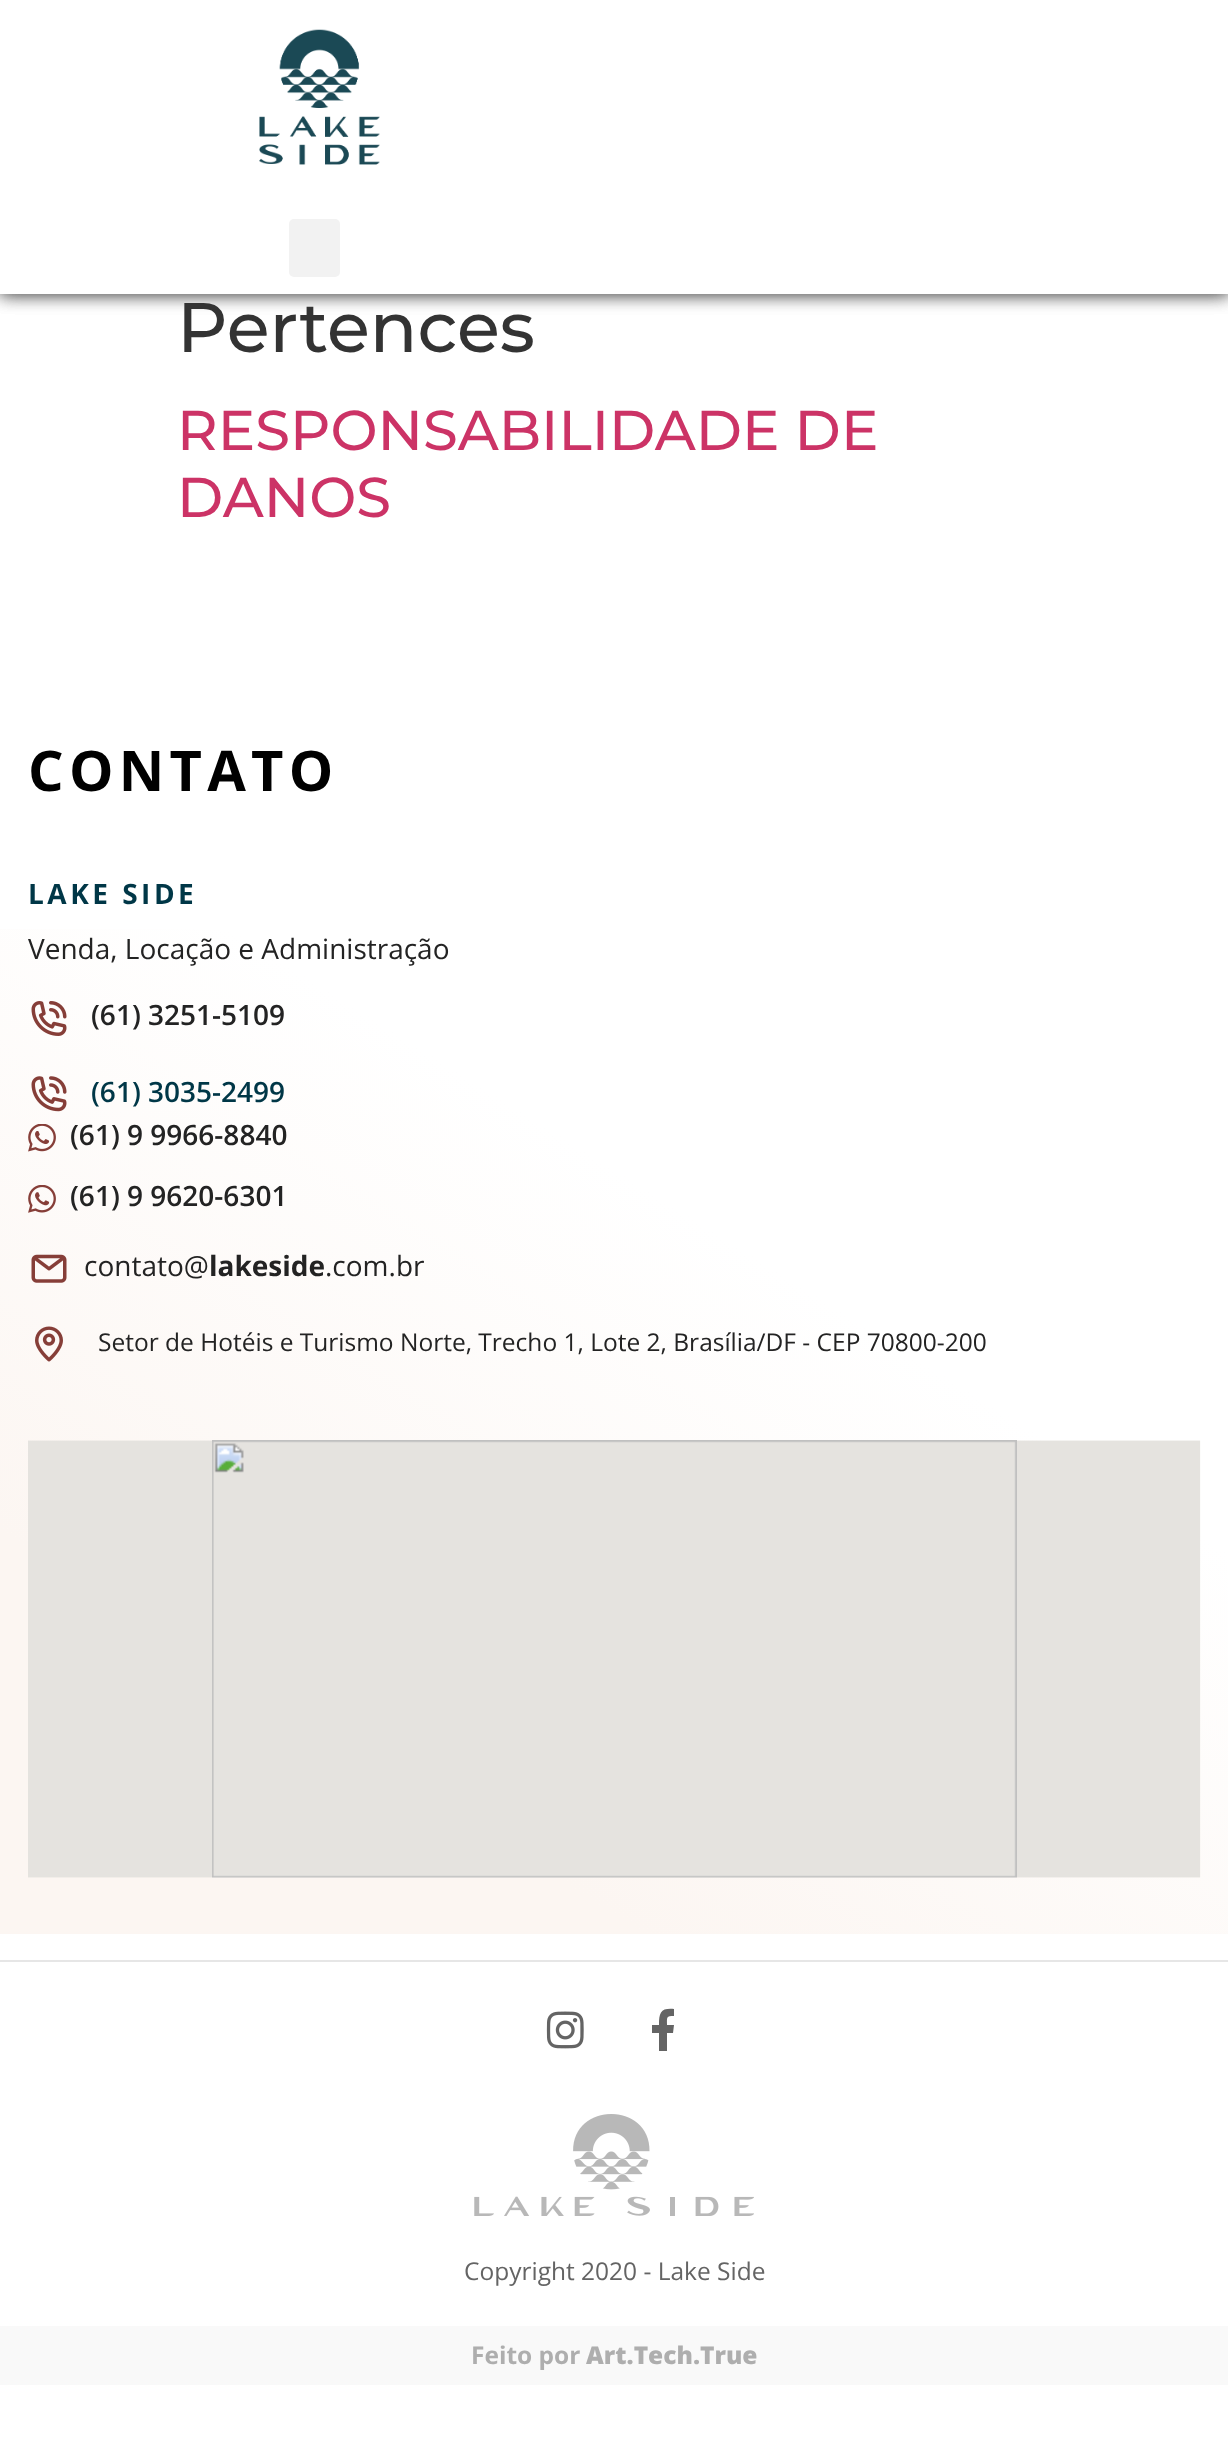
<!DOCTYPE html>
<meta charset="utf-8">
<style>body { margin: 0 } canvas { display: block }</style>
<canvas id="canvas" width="1228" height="2456"></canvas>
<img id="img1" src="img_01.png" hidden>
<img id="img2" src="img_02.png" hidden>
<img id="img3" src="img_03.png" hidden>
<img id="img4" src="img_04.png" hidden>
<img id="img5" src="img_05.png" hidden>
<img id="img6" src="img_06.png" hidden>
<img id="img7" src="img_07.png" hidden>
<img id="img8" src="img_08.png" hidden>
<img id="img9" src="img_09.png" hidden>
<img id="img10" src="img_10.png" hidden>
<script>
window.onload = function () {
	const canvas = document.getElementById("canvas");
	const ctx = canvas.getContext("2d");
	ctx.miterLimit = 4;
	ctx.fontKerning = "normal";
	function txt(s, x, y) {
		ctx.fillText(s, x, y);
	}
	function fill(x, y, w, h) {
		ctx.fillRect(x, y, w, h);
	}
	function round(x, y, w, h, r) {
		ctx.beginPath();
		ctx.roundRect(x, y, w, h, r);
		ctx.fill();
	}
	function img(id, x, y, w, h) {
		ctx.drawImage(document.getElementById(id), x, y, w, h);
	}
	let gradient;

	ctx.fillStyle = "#FFFFFF";
	fill(0, 0, 1228, 2456);
	ctx.fillStyle = "rgba(0, 0, 0, 0.5)";
	ctx.filter = "blur(9px)";
	ctx.beginPath();
	ctx.rect(0, 0, 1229, 294);
	ctx.fill();
	ctx.filter = "none";
	ctx.filter = "blur(9px)";
	ctx.beginPath();
	ctx.rect(0, 159, 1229, 135);
	ctx.fill();
	ctx.filter = "none";
	ctx.fillStyle = "#FFFFFF";
	fill(0, 0, 1228, 294);
	img("img1", 259, 29, 121, 136);
	ctx.fillStyle = "#F2F2F2";
	round(289, 219, 51, 58, 5);
	gradient = ctx.createLinearGradient(1067, 585, 161, 2035);
	gradient.addColorStop(0.43, "#FFFFFF");
	gradient.addColorStop(0.8, "#FCF6F2");
	ctx.fillStyle = gradient;
	fill(0, 929, 1228, 1005);
	img("img2", 31, 1001, 36, 35);
	img("img3", 31, 1076, 36, 36);
	img("img4", 28, 1124, 28, 28);
	img("img5", 28, 1185, 28, 28);
	img("img6", 31, 1254, 36, 29);
	img("img7", 35, 1326, 28, 36);
	img("img8", 28, 1440, 1173, 438);
	ctx.fillStyle = "#E6E6E6";
	fill(0, 1960, 1228, 2);
	img("img9", 546, 2011, 38, 38);
	ctx.fillStyle = "#646464";
	ctx.beginPath();
	ctx.moveTo(673, 2033);
	ctx.lineTo(667, 2033);
	ctx.lineTo(667, 2051);
	ctx.lineTo(659, 2051);
	ctx.lineTo(659, 2033);
	ctx.lineTo(652, 2033);
	ctx.lineTo(652, 2025);
	ctx.lineTo(659, 2025);
	ctx.bezierCurveTo(659, 2012, 661, 2008, 674, 2009);
	ctx.lineTo(674, 2016);
	ctx.bezierCurveTo(666, 2016, 667, 2017, 667, 2025);
	ctx.lineTo(674, 2025);
	ctx.closePath();
	ctx.fill();
	img("img10", 474, 2114, 280, 102);
	ctx.fillStyle = "#F9F9F9";
	fill(0, 2326, 1228, 59);
	ctx.font = "500 70px Montserrat";
	ctx.fillStyle = "#333333";
	txt("Pertences", 177, 352);
	ctx.font = "500 56px Montserrat";
	ctx.fillStyle = "#CC3366";
	txt("RESPONSABILIDADE DE", 177, 450);
	txt("DANOS", 177, 517);
	ctx.letterSpacing = "5.25px";
	ctx.font = "bold 56px Open Sans";
	ctx.fillStyle = "#000000";
	txt("CONTATO", 28, 791);
	ctx.letterSpacing = "3.5px";
	ctx.font = "bold 28px Open Sans";
	ctx.fillStyle = "#003747";
	txt("LAKE SIDE", 28, 904);
	ctx.letterSpacing = "0px";
	ctx.font = "28px Open Sans";
	ctx.fillStyle = "#232323";
	txt("Venda, Locação e Administração", 28, 959);
	ctx.font = "600 28px Open Sans";
	txt("(61) 3251-5109", 91, 1025);
	ctx.fillStyle = "#003747";
	txt("(61) 3035-2499", 91, 1102);
	ctx.fillStyle = "#232323";
	txt("(61) 9 9966-8840", 70, 1145);
	txt("(61) 9 9620-6301", 70, 1206);
	ctx.font = "28px Open Sans";
	txt("contato@", 84, 1276);
	ctx.font = "bold 28px Open Sans";
	txt("lakeside", 209, 1276);
	ctx.font = "28px Open Sans";
	txt(".com.br", 325, 1276);
	ctx.font = "24.5px Open Sans";
	txt("Setor de Hotéis e Turismo Norte, Trecho 1, Lote 2, Brasília/DF - CEP 70800-200", 98, 1351);
	ctx.fillStyle = "#646464";
	txt("Copyright 2020 - Lake Side", 464, 2280);
	ctx.font = "bold 24.5px Open Sans";
	ctx.fillStyle = "#AEAEAE";
	txt("Feito por", 471, 2364);
	ctx.font = "800 24.5px Open Sans";
	txt("Art.Tech.True", 586, 2364);
};
</script>
